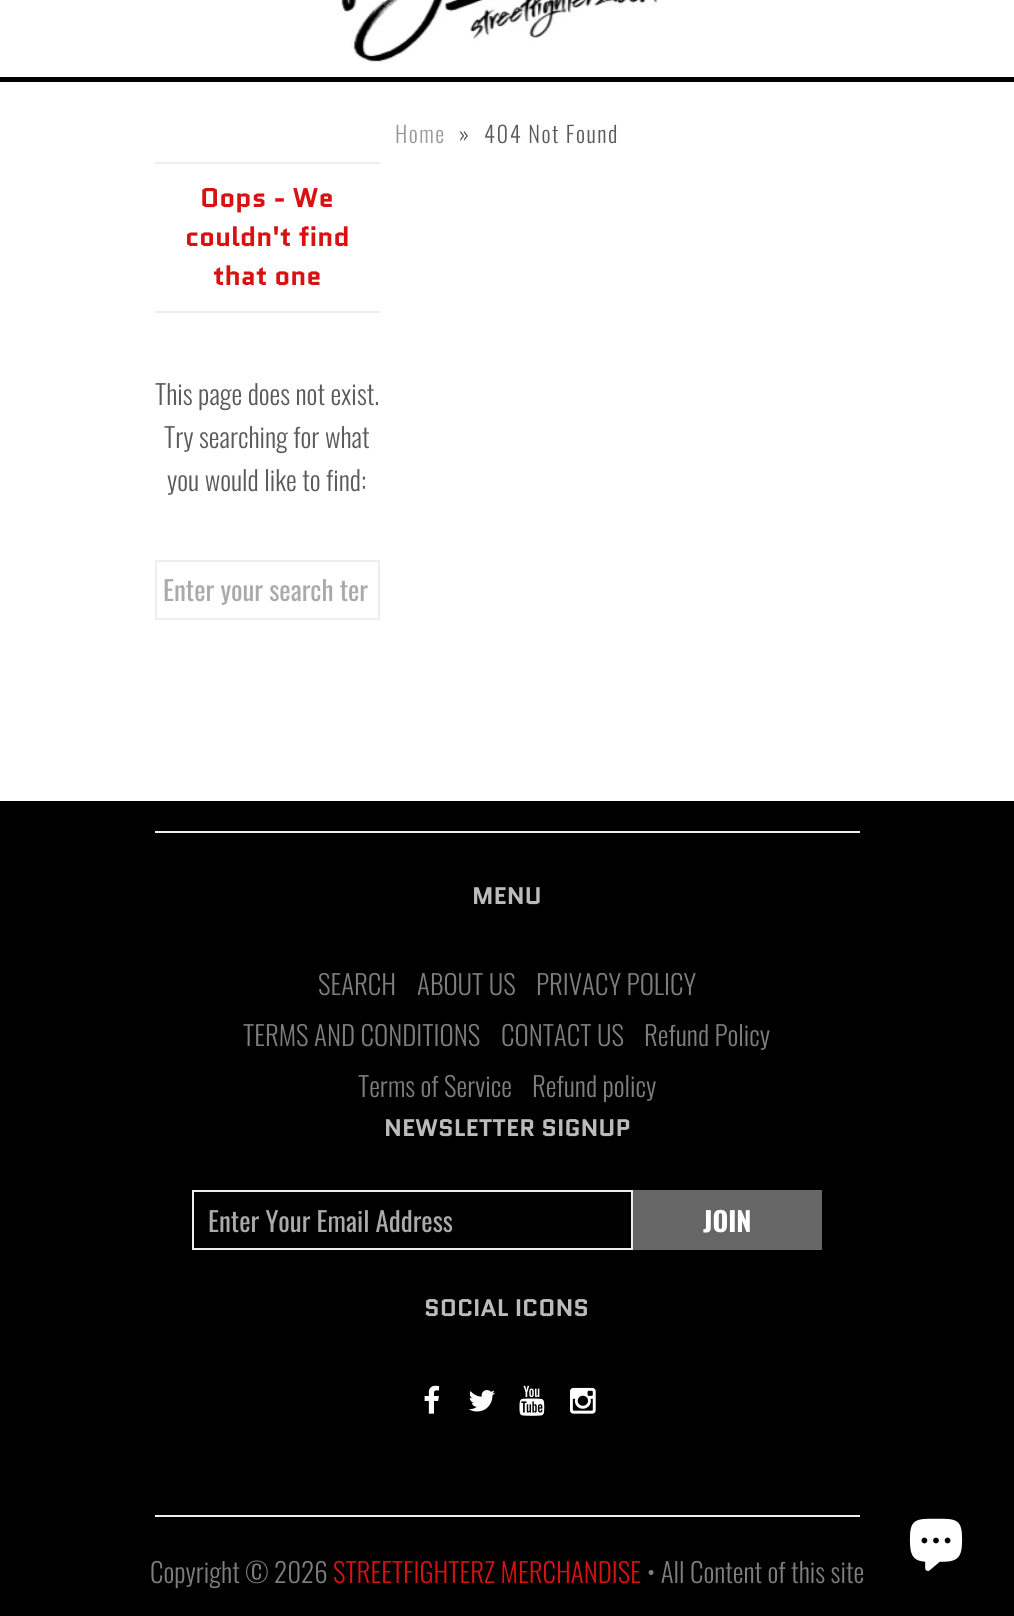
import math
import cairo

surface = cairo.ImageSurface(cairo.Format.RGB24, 1014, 1616)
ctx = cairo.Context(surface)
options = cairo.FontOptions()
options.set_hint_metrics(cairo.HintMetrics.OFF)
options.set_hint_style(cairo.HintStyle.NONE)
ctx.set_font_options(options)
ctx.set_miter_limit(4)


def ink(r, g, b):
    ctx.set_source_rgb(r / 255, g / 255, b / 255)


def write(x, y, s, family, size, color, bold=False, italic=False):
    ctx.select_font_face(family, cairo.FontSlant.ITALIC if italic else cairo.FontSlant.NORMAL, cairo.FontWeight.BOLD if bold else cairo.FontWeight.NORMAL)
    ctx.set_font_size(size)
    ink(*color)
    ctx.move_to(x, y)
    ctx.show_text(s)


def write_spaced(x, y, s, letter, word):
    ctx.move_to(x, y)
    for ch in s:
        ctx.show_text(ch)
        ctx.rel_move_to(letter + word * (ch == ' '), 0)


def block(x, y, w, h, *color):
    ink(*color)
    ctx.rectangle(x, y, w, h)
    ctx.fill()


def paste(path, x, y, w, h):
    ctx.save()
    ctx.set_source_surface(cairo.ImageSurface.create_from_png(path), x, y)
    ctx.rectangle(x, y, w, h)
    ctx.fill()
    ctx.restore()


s1 = dict(family="Quantico", size=27, color=(216, 18, 18), bold=True)
s2 = dict(family="Oswald Light", size=27, color=(90, 90, 90))
s3 = dict(family="Oswald", size=27, color=(170, 170, 170))
s4 = dict(family="Quantico", size=24, color=(187, 187, 187), bold=True)
s5 = dict(family="Oswald Light", size=27, color=(126, 126, 126))
s6 = dict(family="Oswald", size=27, color=(255, 255, 255), bold=True)
s7 = dict(family="Oswald Light", size=27, color=(216, 18, 18))

ink(255, 255, 255)
ctx.paint()
paste("pic1.png", 341, 0, 317, 62)
block(0, 77, 1014, 5, 0, 0, 0)
ctx.select_font_face("Oswald Light")
ctx.set_font_size(22.5)
ink(153, 153, 153)
write_spaced(395, 143, "Home", 1.5, 0)
ink(90, 90, 90)
write_spaced(459, 143, "»", 1.5, 0)
write_spaced(484, 143, "404 Not Found", 1.5, 0)
block(155, 162, 225, 2, 238, 238, 238)
block(155, 311, 225, 2, 238, 238, 238)
write(200, 207, "Oops - We", **s1)
write(185, 246, "couldn't find", **s1)
write(213, 285, "that one", **s1)
write(155, 405, "This page does not exist.", **s2)
write(164, 448, "Try searching for what", **s2)
write(167, 491, "you would like to find:", **s2)
ctx.rectangle(156, 561, 223, 58)
ink(238, 238, 238)
ctx.stroke()
write(163, 601, "Enter your search ter", **s3)
block(0, 801, 1014, 815, 0, 0, 0)
block(155, 831, 705, 2, 240, 240, 240)
block(155, 1515, 705, 2, 240, 240, 240)
write(472, 904, "MENU", **s4)
write(318, 995, "SEARCH", **s5)
write(417, 995, "ABOUT US", **s5)
write(536, 995, "PRIVACY POLICY", **s5)
write(243, 1046, "TERMS AND CONDITIONS", **s5)
write(501, 1046, "CONTACT US", **s5)
write(644, 1046, "Refund Policy", **s5)
write(358, 1097, "Terms of Service", **s5)
write(532, 1097, "Refund policy", **s5)
write(384, 1136, "NEWSLETTER SIGNUP", **s4)
ctx.rectangle(193, 1191, 439, 58)
ink(238, 238, 238)
ctx.stroke()
write(208, 1232, "Enter Your Email Address", **s3)
block(633, 1190, 189, 60, 102, 102, 102)
write(703, 1232, "JOIN", **s6)
write(424, 1316, "SOCIAL ICONS", **s4)
paste("pic2.png", 424, 1385, 16, 29)
paste("pic3.png", 469, 1390, 26, 22)
paste("pic4.png", 519, 1385, 26, 31)
paste("pic5.png", 570, 1387, 26, 27)
write(150, 1583, "Copyright © 2026", **s5)
write(333, 1583, "STREETFIGHTERZ MERCHANDISE", **s7)
write(647, 1583, "• All Content of this site", **s5)
paste("pic6.png", 909, 1518, 54, 53)
surface.write_to_png("screenshot.png")
